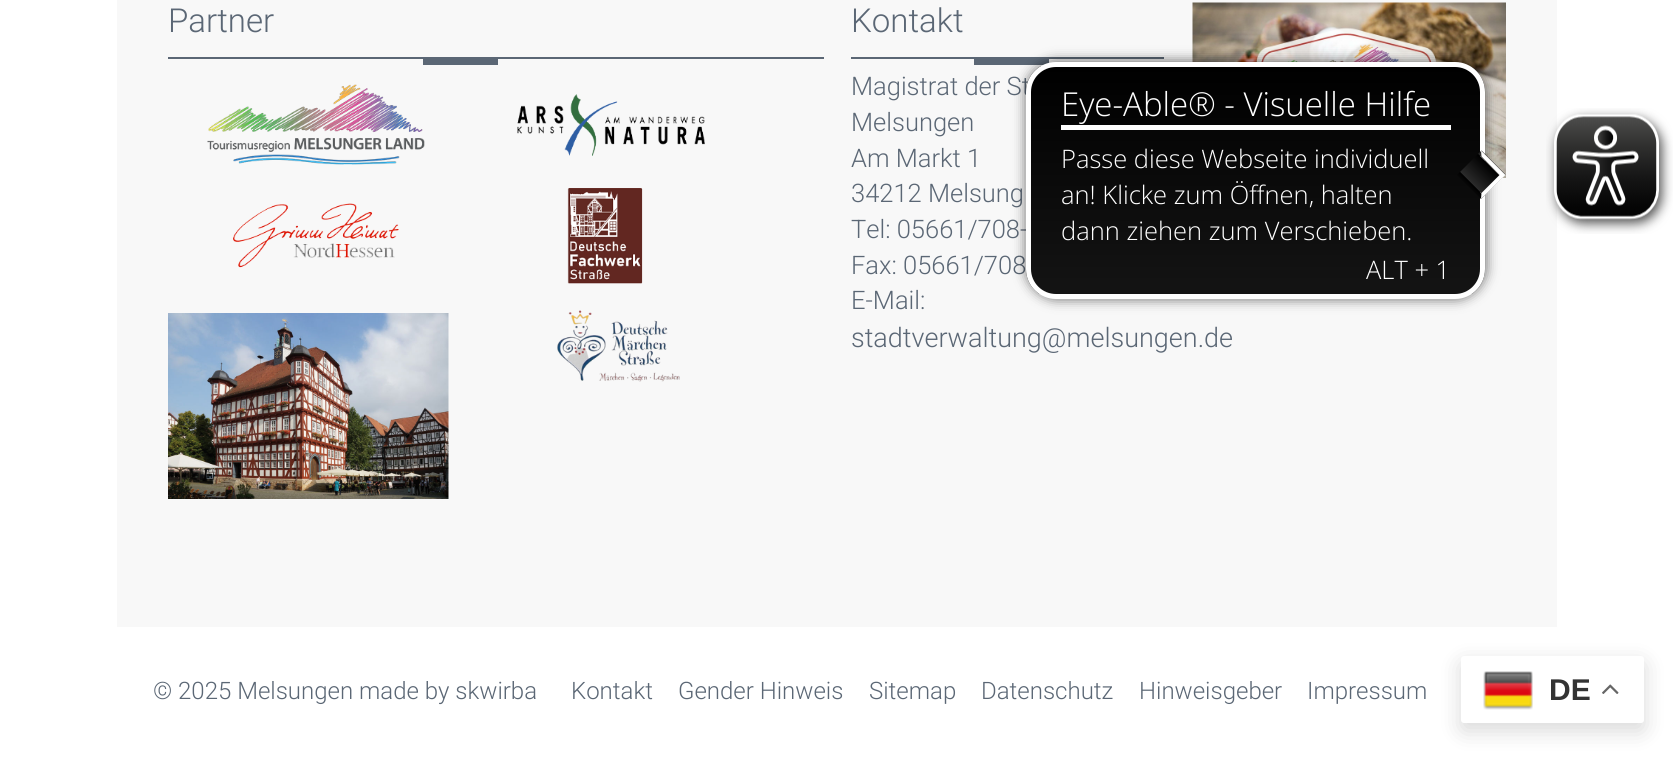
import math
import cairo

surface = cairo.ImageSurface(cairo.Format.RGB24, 1674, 763)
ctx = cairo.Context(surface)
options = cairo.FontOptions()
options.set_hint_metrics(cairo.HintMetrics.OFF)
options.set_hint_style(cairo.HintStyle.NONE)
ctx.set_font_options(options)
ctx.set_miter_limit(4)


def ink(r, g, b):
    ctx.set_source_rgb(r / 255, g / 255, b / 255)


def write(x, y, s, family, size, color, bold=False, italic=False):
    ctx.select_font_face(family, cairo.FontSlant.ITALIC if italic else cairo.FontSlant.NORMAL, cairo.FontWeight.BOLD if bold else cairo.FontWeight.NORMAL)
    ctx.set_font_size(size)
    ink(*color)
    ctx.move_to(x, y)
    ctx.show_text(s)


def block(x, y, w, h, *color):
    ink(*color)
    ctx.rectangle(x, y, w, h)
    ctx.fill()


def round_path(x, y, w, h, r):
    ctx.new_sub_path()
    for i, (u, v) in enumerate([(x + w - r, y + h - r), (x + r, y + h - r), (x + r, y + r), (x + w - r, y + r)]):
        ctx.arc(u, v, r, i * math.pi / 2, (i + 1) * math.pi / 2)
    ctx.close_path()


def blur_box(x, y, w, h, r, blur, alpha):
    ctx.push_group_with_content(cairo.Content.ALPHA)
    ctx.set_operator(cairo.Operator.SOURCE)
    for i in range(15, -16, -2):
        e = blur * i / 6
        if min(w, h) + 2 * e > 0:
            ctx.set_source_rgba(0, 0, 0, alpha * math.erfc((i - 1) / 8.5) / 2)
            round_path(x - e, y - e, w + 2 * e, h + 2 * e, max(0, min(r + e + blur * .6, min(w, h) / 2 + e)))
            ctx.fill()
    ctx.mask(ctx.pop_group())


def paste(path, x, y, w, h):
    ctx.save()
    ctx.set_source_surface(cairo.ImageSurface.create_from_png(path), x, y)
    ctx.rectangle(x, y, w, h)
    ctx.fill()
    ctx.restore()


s1 = dict(family="Roboto Light", size=33, color=(91, 103, 117))
s2 = dict(family="Roboto Light", size=25.5, color=(91, 103, 117))
s3 = dict(family="Roboto Light", size=27, color=(91, 103, 117))
s4 = dict(family="Roboto Light", size=24, color=(91, 103, 117))
s5 = dict(family="Liberation Sans", size=30, color=(51, 51, 51), bold=True)
s6 = dict(family="Open Sans Light", size=33, color=(255, 255, 255))
s7 = dict(family="Open Sans Light", size=25.5, color=(255, 255, 255))

ink(255, 255, 255)
ctx.paint()
block(117, 0, 1440, 627, 248, 248, 248)
block(168, 57, 656, 2, 91, 103, 117)
write(168, 32, "Partner", **s1)
block(423, 59, 75, 6, 91, 103, 117)
paste("pic1.png", 207, 84, 218, 81)
paste("pic2.png", 517, 94, 188, 62)
paste("pic3.png", 233, 203, 166, 65)
paste("pic4.png", 567, 188, 76, 96)
paste("pic5.png", 168, 313, 281, 186)
paste("pic6.png", 557, 310, 123, 72)
block(851, 57, 313, 2, 91, 103, 117)
write(851, 32, "Kontakt", **s1)
block(974, 59, 75, 6, 91, 103, 117)
write(851, 95, "Magistrat der St", **s2)
write(851, 131, "Melsungen", **s2)
write(851, 167, "Am Markt 1", **s2)
write(851, 202, "34212 Melsung", **s2)
write(851, 238, "Tel: 05661/708-", **s2)
write(851, 274, "Fax: 05661/708", **s2)
write(851, 309, "E-Mail:", **s2)
write(851, 347, "stadtverwaltung@melsungen.de", **s3)
paste("pic7.png", 1192, 2, 314, 176)
write(153, 699, "© 2025 Melsungen made by skwirba", **s4)
write(571, 699, "Kontakt", **s4)
write(678, 699, "Gender Hinweis", **s4)
write(869, 699, "Sitemap", **s4)
write(981, 699, "Datenschutz", **s4)
write(1139, 699, "Hinweisgeber", **s4)
write(1307, 699, "Impressum", **s4)
ink(0, 0, 0)
blur_box(1461, 663, 183, 68, 3, 11, 0.15)
ink(255, 255, 255)
round_path(1461, 656, 183, 67, 3)
ctx.fill()
paste("pic8.png", 1483, 671, 50, 39)
write(1549, 700, "DE", **s5)
paste("pic9.png", 1602, 684, 17, 10)
ink(0, 0, 0)
blur_box(1025, 60, 462, 240, 32, 6, 0.5)
ctx.save()
round_path(1026, 62, 459, 237, 30)
ctx.clip()
gradient = cairo.LinearGradient(1256, 66, 1256, 294)
gradient.add_color_stop_rgba(0, 0, 0, 0, 1)
gradient.add_color_stop_rgba(1, 0.078, 0.078, 0.078, 1)
ctx.set_source(gradient)
ctx.rectangle(1026, 66, 459, 228)
ctx.fill()
ctx.restore()
round_path(1028.5, 64.5, 454, 232, 27.5)
ink(255, 255, 255)
ctx.set_line_width(5)
ctx.stroke()
block(1061, 125, 390, 5, 255, 255, 255)
write(1061, 116, "Eye-Able® - Visuelle Hilfe", **s6)
write(1061, 168, "Passe diese Webseite individuell", **s7)
write(1061, 204, "an! Klicke zum Öffnen, halten", **s7)
write(1061, 240, "dann ziehen zum Verschieben.", **s7)
gradient = cairo.LinearGradient(1508, 148, 1490, 166)
gradient.add_color_stop_rgba(0, 0, 0, 0, 1)
gradient.add_color_stop_rgba(1, 0.169, 0.169, 0.169, 1)
ctx.set_source(gradient)
ctx.new_path()
ctx.move_to(1505.5, 174.5)
ctx.line_to(1502, 178)
ctx.line_to(1478, 154)
ctx.line_to(1481.5, 150.5)
ctx.close_path()
ctx.fill()
gradient = cairo.LinearGradient(1490, 166, 1472, 184)
gradient.add_color_stop_rgba(0, 0, 0, 0, 1)
gradient.add_color_stop_rgba(1, 0.169, 0.169, 0.169, 1)
ctx.set_source(gradient)
ctx.new_path()
ctx.move_to(1478, 154)
ctx.line_to(1502, 178)
ctx.line_to(1484, 196)
ctx.line_to(1460, 172)
ctx.close_path()
ctx.fill()
gradient = cairo.LinearGradient(1472, 184, 1454, 202)
gradient.add_color_stop_rgba(0, 0, 0, 0, 1)
gradient.add_color_stop_rgba(1, 0.169, 0.169, 0.169, 1)
ctx.set_source(gradient)
ctx.new_path()
ctx.move_to(1460, 172)
ctx.line_to(1484, 196)
ctx.line_to(1481, 199)
ctx.line_to(1457, 175)
ctx.close_path()
ctx.fill()
ink(255, 255, 255)
ctx.new_path()
ctx.move_to(1481, 150.5)
ctx.line_to(1505.5, 175)
ctx.line_to(1499.5, 175)
ctx.line_to(1481.5, 156.5)
ctx.close_path()
ctx.move_to(1505.5, 175)
ctx.line_to(1481, 199)
ctx.line_to(1481.5, 193)
ctx.line_to(1499.5, 175)
ctx.close_path()
ctx.fill()
write(1366, 279, "ALT + 1", **s7)
paste("pic10.png", 1546, 108, 127, 126)
surface.write_to_png("screenshot.png")
